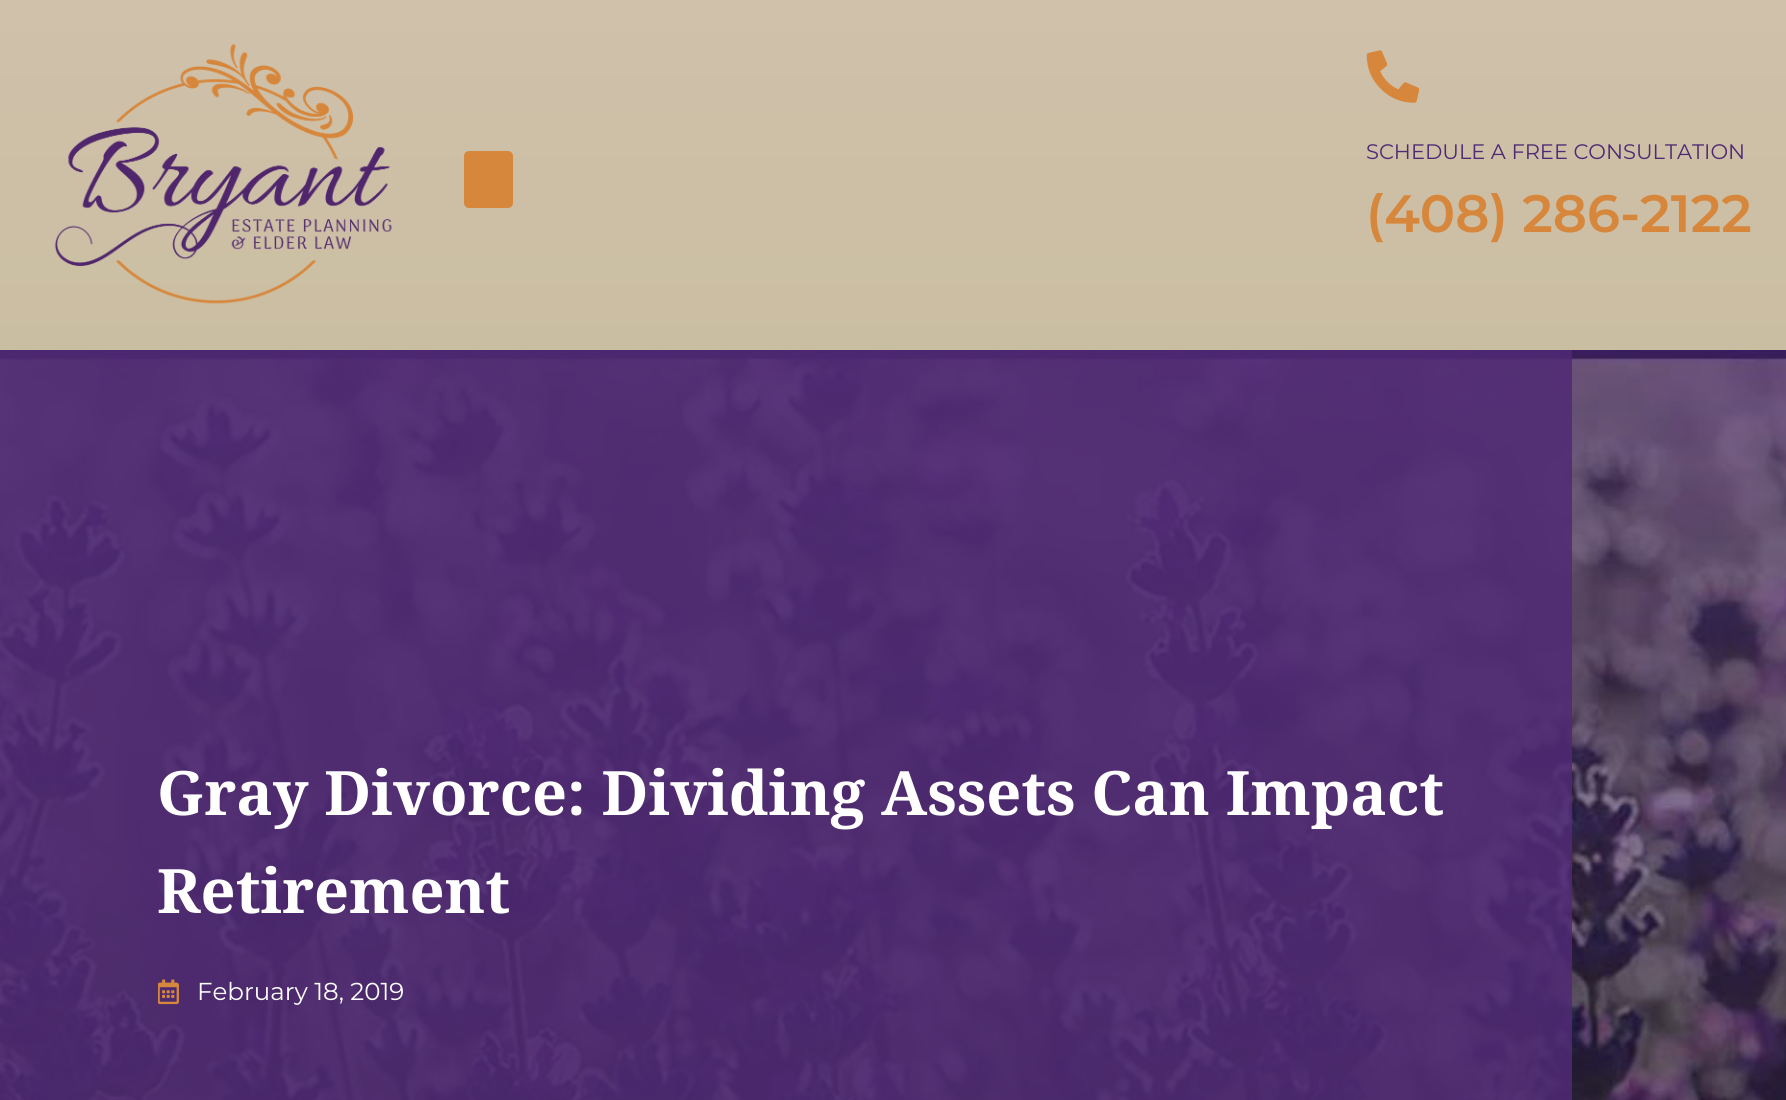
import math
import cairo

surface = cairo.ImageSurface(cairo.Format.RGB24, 1786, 1100)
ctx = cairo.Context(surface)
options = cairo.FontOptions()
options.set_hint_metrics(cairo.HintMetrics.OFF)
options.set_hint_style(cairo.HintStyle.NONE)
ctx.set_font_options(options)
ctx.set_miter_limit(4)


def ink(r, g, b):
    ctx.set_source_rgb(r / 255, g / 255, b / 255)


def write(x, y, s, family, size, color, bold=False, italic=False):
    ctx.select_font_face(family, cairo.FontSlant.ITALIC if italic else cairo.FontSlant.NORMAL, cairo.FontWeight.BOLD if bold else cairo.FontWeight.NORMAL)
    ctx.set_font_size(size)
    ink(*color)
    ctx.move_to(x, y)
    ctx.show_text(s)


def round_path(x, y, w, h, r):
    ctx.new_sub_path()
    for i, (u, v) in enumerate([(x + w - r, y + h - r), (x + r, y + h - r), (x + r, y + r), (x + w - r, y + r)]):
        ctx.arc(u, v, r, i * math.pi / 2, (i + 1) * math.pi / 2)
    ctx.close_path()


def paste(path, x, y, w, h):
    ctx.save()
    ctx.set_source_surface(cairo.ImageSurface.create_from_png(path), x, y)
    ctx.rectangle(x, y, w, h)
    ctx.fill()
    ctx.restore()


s1 = dict(family="Montserrat", size=21, color=(80, 41, 116))
s2 = dict(family="Montserrat SemiBold", size=52.5, color=(215, 135, 60))
s3 = dict(family="Noto Serif", size=61.25, color=(255, 255, 255), bold=True)
s4 = dict(family="Montserrat", size=24.5, color=(255, 255, 255))

ink(255, 255, 255)
ctx.paint()
gradient = cairo.LinearGradient(893, -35, 893, 350)
gradient.add_color_stop_rgba(0, 0.816, 0.757, 0.671, 1)
gradient.add_color_stop_rgba(1, 0.792, 0.745, 0.635, 1)
ctx.set_source(gradient)
ctx.rectangle(0, 0, 1786, 350)
ctx.fill()
paste("pic1.png", 54, 43, 338, 261)
ink(215, 135, 60)
round_path(464, 151, 49, 57, 5)
ctx.fill()
paste("pic2.png", 1366, 50, 54, 53)
write(1366, 159, "SCHEDULE A FREE CONSULTATION", **s1)
write(1366, 232, "(408) 286-2122", **s2)
paste("pic3.png", 0, 350, 1786, 750)
ctx.set_source_rgba(0.314, 0.161, 0.455, 0.85)
ctx.rectangle(0, 350, 1572, 750)
ctx.fill()
write(157, 815, "Gray Divorce: Dividing Assets Can Impact", **s3)
write(157, 913, "Retirement", **s3)
paste("pic4.png", 158, 979, 21, 26)
write(197, 1000, "February 18, 2019", **s4)
surface.write_to_png("screenshot.png")
